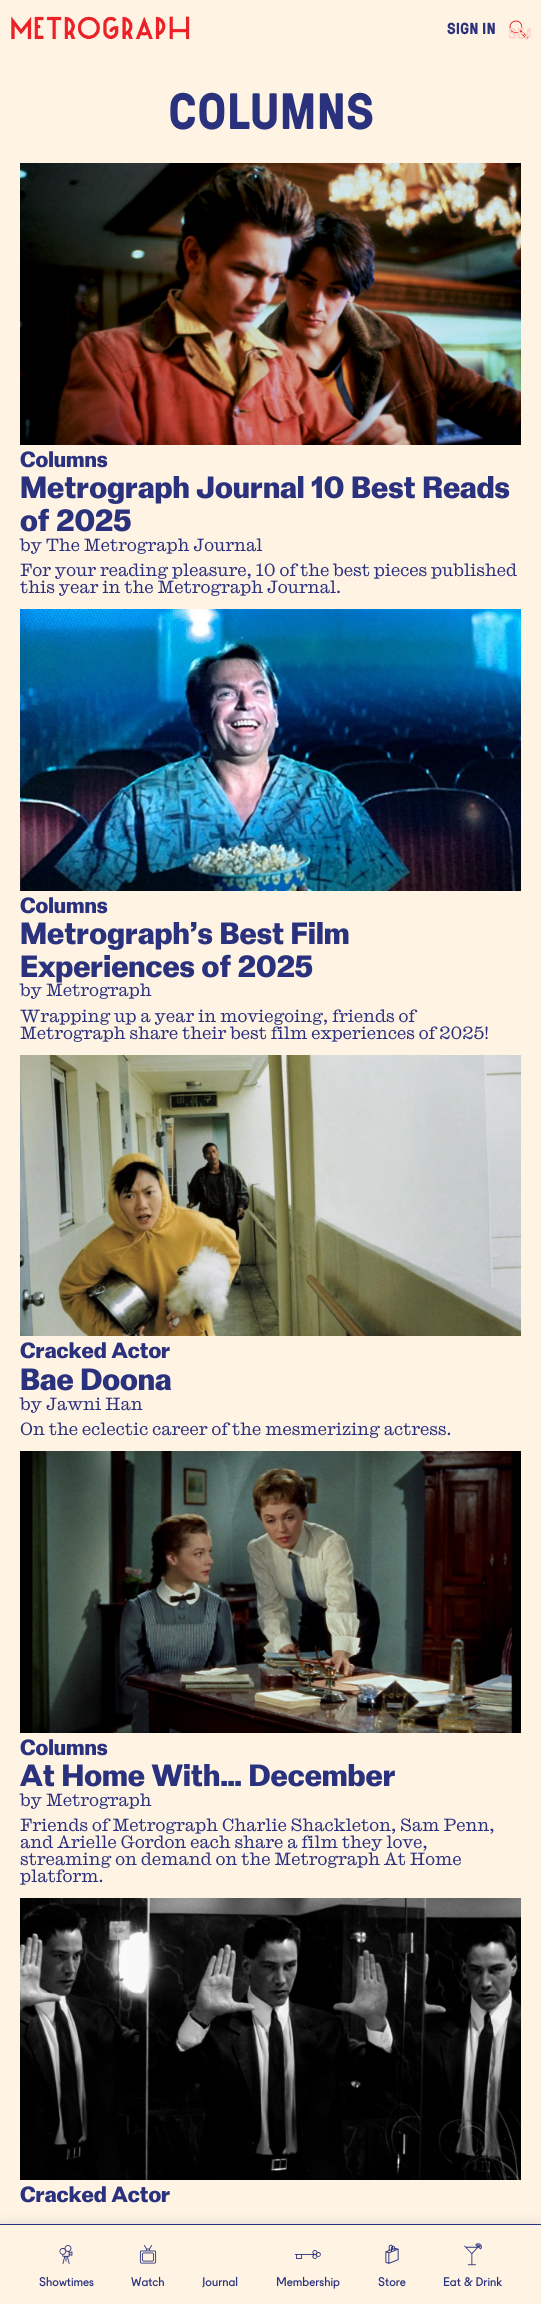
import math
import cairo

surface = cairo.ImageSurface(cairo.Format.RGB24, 541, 2304)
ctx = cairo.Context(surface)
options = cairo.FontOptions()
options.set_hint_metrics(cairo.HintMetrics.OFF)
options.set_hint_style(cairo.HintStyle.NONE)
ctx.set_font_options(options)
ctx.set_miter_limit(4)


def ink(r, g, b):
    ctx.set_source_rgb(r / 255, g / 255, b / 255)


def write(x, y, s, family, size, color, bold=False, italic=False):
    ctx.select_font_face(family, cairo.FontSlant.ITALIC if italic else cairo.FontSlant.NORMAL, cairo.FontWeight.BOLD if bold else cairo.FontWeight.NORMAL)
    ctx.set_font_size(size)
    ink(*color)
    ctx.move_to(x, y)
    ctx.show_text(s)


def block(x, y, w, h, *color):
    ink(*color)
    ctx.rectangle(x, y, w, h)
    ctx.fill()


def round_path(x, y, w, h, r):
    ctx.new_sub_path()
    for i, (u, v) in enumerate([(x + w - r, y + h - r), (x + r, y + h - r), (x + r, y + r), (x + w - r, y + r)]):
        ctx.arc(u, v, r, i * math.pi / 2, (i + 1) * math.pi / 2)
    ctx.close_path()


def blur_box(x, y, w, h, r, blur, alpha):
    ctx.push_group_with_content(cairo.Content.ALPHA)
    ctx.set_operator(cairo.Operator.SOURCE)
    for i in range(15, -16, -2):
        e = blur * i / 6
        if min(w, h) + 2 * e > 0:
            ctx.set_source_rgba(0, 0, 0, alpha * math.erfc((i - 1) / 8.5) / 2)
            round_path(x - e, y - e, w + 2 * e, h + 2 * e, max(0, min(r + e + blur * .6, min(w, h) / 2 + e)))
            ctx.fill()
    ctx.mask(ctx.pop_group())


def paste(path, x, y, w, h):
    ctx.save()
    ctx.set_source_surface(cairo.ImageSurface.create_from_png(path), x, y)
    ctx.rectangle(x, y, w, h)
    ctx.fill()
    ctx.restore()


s1 = dict(family="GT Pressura", size=16, color=(42, 49, 125), bold=True)
s2 = dict(family="GT Pressura", size=16, color=(252, 214, 202), bold=True)
s3 = dict(family="GT Pressura", size=51, color=(42, 49, 125), bold=True)
s4 = dict(family="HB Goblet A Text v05 Black", size=21.25, color=(42, 49, 125))
s5 = dict(family="HB Goblet A Text v05 Black", size=29.75, color=(42, 49, 125))
s6 = dict(family="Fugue", size=12, color=(42, 49, 125))

ink(255, 243, 227)
ctx.paint()
paste("pic1.png", 11, 16, 179, 24)
write(447, 34, "SIGN IN", **s1)
paste("pic2.png", 509, 20, 20, 20)
ctx.save()
round_path(506, 17, 25, 25, 6)
ctx.clip()
write(508, 39, "SEA", **s2)
ctx.restore()
write(168, 129, "COLUMNS", **s3)
paste("pic3.png", 20, 163, 501, 282)
write(20, 467, "Columns", **s4)
write(20, 498, "Metrograph Journal 10 Best Reads", **s5)
write(20, 531, "of 2025", **s5)
paste("pic4.png", 19, 538, 23, 16)
paste("pic5.png", 46, 538, 217, 16)
paste("pic6.png", 20, 563, 497, 16)
paste("pic7.png", 20, 580, 320, 16)
paste("pic8.png", 20, 609, 501, 282)
write(20, 913, "Columns", **s4)
write(20, 944, "Metrograph’s Best Film", **s5)
write(20, 977, "Experiences of 2025", **s5)
paste("pic4.png", 19, 983, 23, 16)
paste("pic9.png", 46, 983, 106, 16)
paste("pic10.png", 20, 1009, 398, 16)
paste("pic11.png", 20, 1026, 468, 16)
paste("pic12.png", 20, 1055, 501, 281)
write(20, 1358, "Cracked Actor", **s4)
write(20, 1390, "Bae Doona", **s5)
paste("pic4.png", 19, 1397, 23, 16)
paste("pic13.png", 46, 1397, 97, 14)
paste("pic14.png", 20, 1422, 431, 16)
paste("pic15.png", 20, 1451, 501, 282)
write(20, 1755, "Columns", **s4)
write(20, 1786, "At Home With… December", **s5)
paste("pic4.png", 19, 1793, 23, 16)
paste("pic9.png", 46, 1793, 106, 16)
paste("pic16.png", 20, 1818, 474, 16)
paste("pic17.png", 20, 1835, 407, 16)
paste("pic18.png", 20, 1852, 441, 16)
paste("pic19.png", 20, 1869, 83, 16)
paste("pic20.png", 20, 1898, 501, 282)
write(20, 2202, "Cracked Actor", **s4)
ink(42, 49, 125)
blur_box(0, 2222, 541, 80, 0, 5, 0.1)
block(0, 2225, 541, 79, 255, 243, 227)
block(0, 2224, 541, 1, 42, 49, 125)
paste("pic21.png", 59, 2245, 14, 19)
write(39, 2286, "Showtimes", **s6)
paste("pic22.png", 139, 2245, 18, 19)
write(131, 2286, "Watch", **s6)
write(202, 2286, "Journal", **s6)
paste("pic23.png", 294, 2250, 27, 9)
write(276, 2286, "Membership", **s6)
paste("pic24.png", 385, 2244, 14, 20)
write(378, 2286, "Store", **s6)
paste("pic25.png", 464, 2243, 18, 23)
write(443, 2286, "Eat & Drink", **s6)
surface.write_to_png("screenshot.png")
